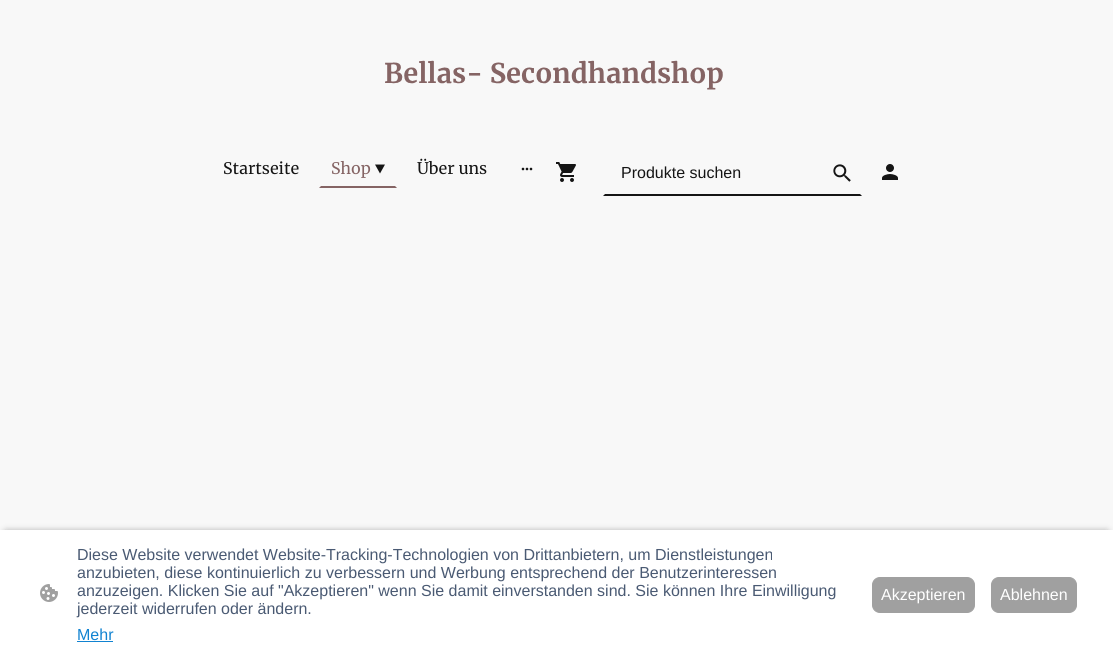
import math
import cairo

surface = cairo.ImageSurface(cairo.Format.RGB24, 1113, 660)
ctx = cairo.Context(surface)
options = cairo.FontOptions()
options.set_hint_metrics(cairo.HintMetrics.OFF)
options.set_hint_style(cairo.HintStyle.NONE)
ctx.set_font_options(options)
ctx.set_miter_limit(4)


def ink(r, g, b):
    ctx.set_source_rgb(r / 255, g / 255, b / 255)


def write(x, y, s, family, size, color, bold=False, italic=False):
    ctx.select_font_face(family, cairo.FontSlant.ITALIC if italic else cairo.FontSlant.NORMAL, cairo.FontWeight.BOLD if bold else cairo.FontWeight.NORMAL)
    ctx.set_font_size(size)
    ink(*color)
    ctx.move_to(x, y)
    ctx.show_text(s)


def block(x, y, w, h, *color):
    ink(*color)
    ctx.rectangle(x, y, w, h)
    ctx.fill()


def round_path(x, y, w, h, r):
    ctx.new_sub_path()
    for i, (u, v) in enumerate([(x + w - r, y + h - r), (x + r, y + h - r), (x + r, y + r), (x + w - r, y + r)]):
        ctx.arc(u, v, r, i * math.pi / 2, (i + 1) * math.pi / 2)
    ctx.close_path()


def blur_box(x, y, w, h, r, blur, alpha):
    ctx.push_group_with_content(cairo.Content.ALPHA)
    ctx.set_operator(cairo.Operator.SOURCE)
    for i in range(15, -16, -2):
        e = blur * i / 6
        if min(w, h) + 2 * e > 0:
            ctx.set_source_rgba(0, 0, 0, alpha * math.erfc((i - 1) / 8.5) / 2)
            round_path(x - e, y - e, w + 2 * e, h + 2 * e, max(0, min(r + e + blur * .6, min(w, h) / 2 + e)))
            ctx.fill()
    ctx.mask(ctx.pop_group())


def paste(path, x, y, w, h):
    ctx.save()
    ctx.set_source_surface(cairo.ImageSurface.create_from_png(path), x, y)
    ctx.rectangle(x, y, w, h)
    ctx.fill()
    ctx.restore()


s1 = dict(family="Merriweather", size=16, color=(21, 21, 21))
s2 = dict(family="Merriweather", size=16, color=(133, 100, 100))
s3 = dict(family="Liberation Sans", size=16, color=(21, 21, 21))
s4 = dict(family="Liberation Sans", size=16, color=(74, 90, 115))
s5 = dict(family="Liberation Sans", size=16, color=(17, 131, 209))
s6 = dict(family="Liberation Sans", size=16, color=(255, 255, 255))

ink(248, 248, 248)
ctx.paint()
paste("pic1.png", 385, 60, 338, 30)
write(223, 174, "Startseite", **s1)
ink(133, 100, 100)
ctx.new_path()
ctx.move_to(397, 188)
ctx.line_to(319, 188)
ctx.line_to(321, 186)
ctx.line_to(395, 186)
ctx.close_path()
ctx.fill()
write(331, 174, "Shop", **s2)
ink(21, 21, 21)
ctx.new_path()
ctx.move_to(385, 164.5)
ctx.line_to(380, 173.5)
ctx.line_to(375, 164.5)
ctx.close_path()
ctx.fill()
write(417, 174, "Über uns", **s1)
paste("pic2.png", 521, 167, 12, 4)
paste("pic3.png", 556, 162, 20, 20)
ctx.new_path()
ctx.move_to(862, 196)
ctx.line_to(603, 196)
ctx.line_to(605, 194)
ctx.line_to(860, 194)
ctx.close_path()
ctx.fill()
write(621, 178, "Produkte suchen", **s3)
paste("pic4.png", 833, 164, 18, 18)
paste("pic5.png", 882, 164, 16, 16)
ink(0, 0, 0)
blur_box(6, 533, 1101, 118, 0, 4, 0.63)
block(0, 530, 1113, 130, 255, 255, 255)
paste("pic6.png", 40, 584, 18, 18)
write(77, 560, "Diese Website verwendet Website-Tracking-Technologien von Drittanbietern, um Dienstleistungen", **s4)
write(77, 578, "anzubieten, diese kontinuierlich zu verbessern und Werbung entsprechend der Benutzerinteressen", **s4)
write(77, 596, "anzuzeigen. Klicken Sie auf \"Akzeptieren\" wenn Sie damit einverstanden sind. Sie können Ihre Einwilligung", **s4)
write(77, 614, "jederzeit widerrufen oder ändern.", **s4)
write(77, 640, "Mehr", **s5)
block(77, 641, 36, 1, 17, 131, 209)
ink(160, 160, 160)
round_path(872.5, 577.5, 102, 35, 7.5)
ctx.fill_preserve()
ctx.set_line_width(1)
ctx.stroke()
write(881, 600, "Akzeptieren", **s6)
ink(160, 160, 160)
round_path(991.5, 577.5, 85, 35, 7.5)
ctx.fill_preserve()
ctx.stroke()
write(1000, 600, "Ablehnen", **s6)
surface.write_to_png("screenshot.png")
